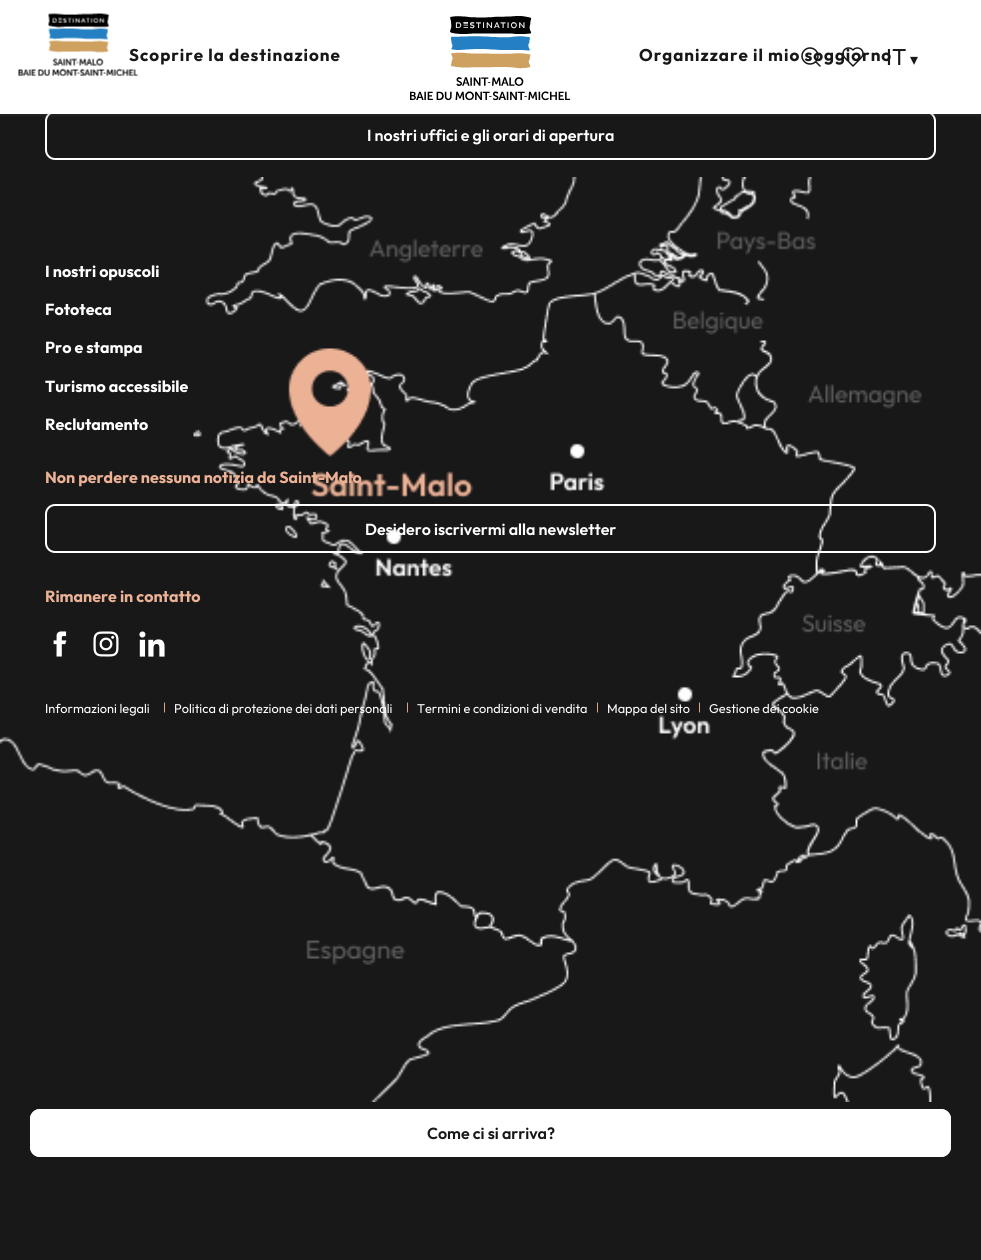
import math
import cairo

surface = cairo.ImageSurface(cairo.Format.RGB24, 981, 1260)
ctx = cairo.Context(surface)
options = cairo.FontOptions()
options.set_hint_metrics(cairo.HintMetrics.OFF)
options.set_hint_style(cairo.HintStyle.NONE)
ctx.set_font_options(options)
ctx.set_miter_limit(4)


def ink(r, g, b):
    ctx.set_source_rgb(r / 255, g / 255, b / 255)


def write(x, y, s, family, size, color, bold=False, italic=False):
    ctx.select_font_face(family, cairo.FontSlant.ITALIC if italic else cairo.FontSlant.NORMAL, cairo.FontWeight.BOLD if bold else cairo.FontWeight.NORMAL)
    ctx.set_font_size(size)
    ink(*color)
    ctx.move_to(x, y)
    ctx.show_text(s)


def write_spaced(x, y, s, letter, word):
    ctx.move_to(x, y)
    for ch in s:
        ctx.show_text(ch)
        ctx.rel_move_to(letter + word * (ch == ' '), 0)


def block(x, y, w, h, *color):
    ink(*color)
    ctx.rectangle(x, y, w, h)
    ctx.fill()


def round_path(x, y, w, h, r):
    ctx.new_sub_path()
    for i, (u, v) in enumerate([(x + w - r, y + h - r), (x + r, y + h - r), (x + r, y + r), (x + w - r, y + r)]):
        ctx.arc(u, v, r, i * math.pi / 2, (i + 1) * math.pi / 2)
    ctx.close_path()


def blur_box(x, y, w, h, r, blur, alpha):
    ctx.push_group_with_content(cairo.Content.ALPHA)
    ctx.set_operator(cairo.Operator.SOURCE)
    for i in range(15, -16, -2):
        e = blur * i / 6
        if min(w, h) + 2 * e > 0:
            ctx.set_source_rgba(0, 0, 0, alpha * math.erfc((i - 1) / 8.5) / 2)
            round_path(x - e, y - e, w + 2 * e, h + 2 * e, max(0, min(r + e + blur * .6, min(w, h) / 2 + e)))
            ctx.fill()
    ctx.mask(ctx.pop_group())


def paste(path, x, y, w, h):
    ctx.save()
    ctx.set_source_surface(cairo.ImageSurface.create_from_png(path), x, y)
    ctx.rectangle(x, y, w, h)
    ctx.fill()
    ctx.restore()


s1 = dict(family="Outfit", size=23, color=(25, 24, 24))
s2 = dict(family="DejaVu Sans", size=16, color=(25, 24, 24))
s3 = dict(family="Outfit SemiBold", size=16, color=(255, 255, 255))
s4 = dict(family="Outfit", size=16, color=(255, 255, 255), bold=True)
s5 = dict(family="Outfit", size=16, color=(236, 178, 150), bold=True)
s6 = dict(family="Outfit", size=12.75, color=(255, 255, 255))
s7 = dict(family="Outfit", size=11, color=(236, 178, 150))
s8 = dict(family="Outfit SemiBold", size=16, color=(25, 24, 24))

ink(25, 24, 24)
ctx.paint()
round_path(46, 112, 889, 47, 9)
ink(255, 255, 255)
ctx.stroke()
ink(75, 75, 75)
blur_box(1, 2, 979, 112, 0, 1.5, 0.3)
blur_box(1, 3, 979, 112, 0, 2.5, 0.25)
block(0, 0, 981, 114, 255, 255, 255)
ctx.select_font_face("Outfit", cairo.FontSlant.NORMAL, cairo.FontWeight.BOLD)
ctx.set_font_size(17)
ink(25, 24, 24)
write_spaced(129, 61, "Scoprire la destinazione", 1, 0)
paste("pic1.png", 410, 16, 161, 85)
write_spaced(639, 61, "Organizzare il mio soggiorno", 1, 0)
paste("pic2.png", 801, 47, 20, 20)
paste("pic3.png", 842, 47, 22, 20)
write(886, 65, "IT", **s1)
write(910, 65, "▾", **s2)
paste("pic4.png", 18, 13, 120, 64)
paste("pic5.png", 0, 177, 981, 925)
write(367, 141, "I nostri uffici e gli orari di apertura", **s3)
write(45, 277, "I nostri opuscoli", **s4)
write(45, 315, "Fototeca", **s4)
write(45, 353, "Pro e stampa", **s4)
write(45, 392, "Turismo accessibile", **s4)
write(45, 430, "Reclutamento", **s4)
write(45, 483, "Non perdere nessuna notizia da Saint-Malo", **s5)
round_path(46, 505, 889, 47, 9)
ink(255, 255, 255)
ctx.stroke()
write(365, 535, "Desidero iscrivermi alla newsletter", **s3)
write(45, 602, "Rimanere in contatto", **s5)
paste("pic6.png", 53, 631, 14, 26)
paste("pic7.png", 93, 631, 26, 26)
paste("pic8.png", 139, 631, 26, 26)
write(45, 713, "Informazioni legali", **s6)
write(163, 711, "|", **s7)
write(174, 713, "Politica di protezione dei dati personali", **s6)
write(406, 711, "|", **s7)
write(417, 713, "Termini e condizioni di vendita", **s6)
write(596, 711, "|", **s7)
write(607, 713, "Mappa del sito", **s6)
write(698, 711, "|", **s7)
write(709, 713, "Gestione dei cookie", **s6)
ctx.save()
round_path(30, 1109, 921, 48, 10)
ctx.clip()
round_path(-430, 988, 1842, 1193, 921)
ctx.fill()
ctx.restore()
ctx.set_fill_rule(cairo.FillRule.EVEN_ODD)
ctx.new_path()
ctx.move_to(38, 1109)
ctx.curve_to(36, 1110, 34, 1111, 33, 1112)
ctx.close_path()
ctx.move_to(946, 1111)
ctx.line_to(945, 1110)
ctx.close_path()
ctx.fill()
round_path(31, 1110, 919, 46, 9)
ctx.stroke()
write(427, 1139, "Come ci si arriva?", **s8)
surface.write_to_png("screenshot.png")
